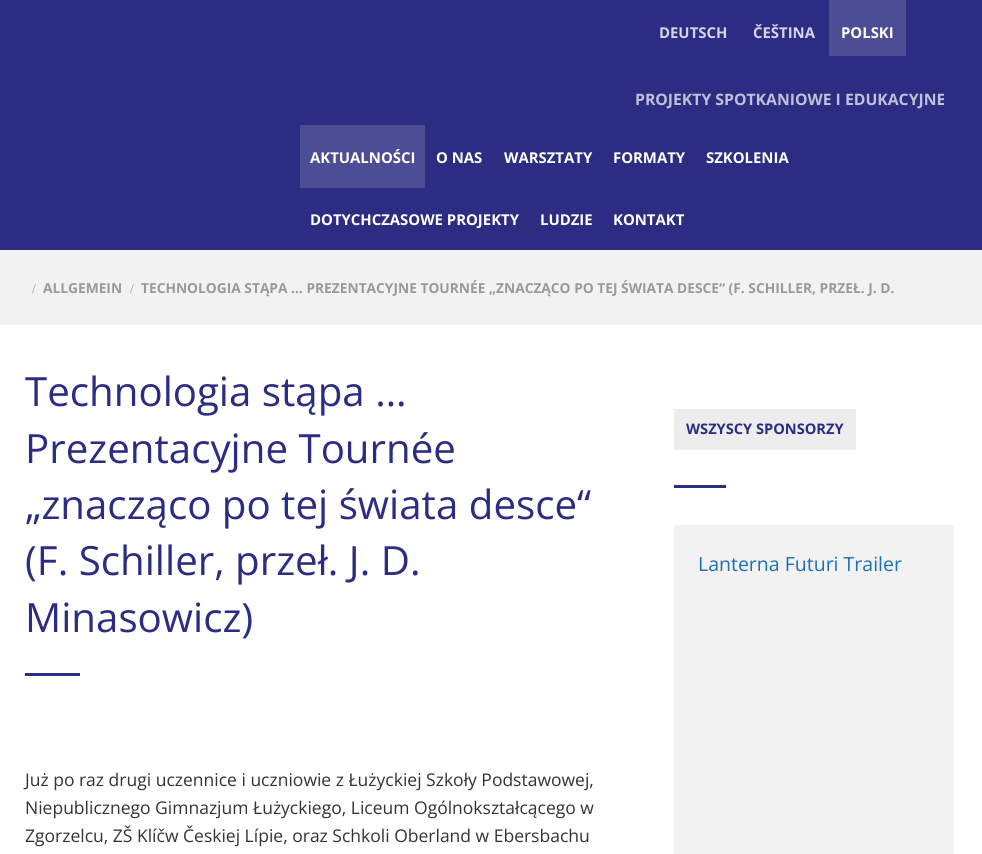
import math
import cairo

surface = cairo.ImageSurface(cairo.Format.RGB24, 982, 854)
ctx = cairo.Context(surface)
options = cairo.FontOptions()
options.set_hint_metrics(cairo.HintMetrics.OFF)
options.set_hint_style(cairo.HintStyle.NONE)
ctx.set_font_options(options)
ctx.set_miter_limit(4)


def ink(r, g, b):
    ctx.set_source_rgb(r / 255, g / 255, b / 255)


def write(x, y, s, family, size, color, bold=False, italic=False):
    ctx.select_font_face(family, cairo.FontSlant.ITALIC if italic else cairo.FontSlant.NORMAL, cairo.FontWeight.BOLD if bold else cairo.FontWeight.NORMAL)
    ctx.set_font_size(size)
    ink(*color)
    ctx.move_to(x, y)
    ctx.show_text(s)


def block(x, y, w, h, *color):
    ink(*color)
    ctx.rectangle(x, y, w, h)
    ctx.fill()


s1 = dict(family="Open Sans", size=14.9, color=(213, 213, 230), bold=True)
s2 = dict(family="Open Sans", size=14.9, color=(255, 255, 255), bold=True)
s3 = dict(family="Open Sans", size=15.75, color=(192, 192, 218), bold=True)
s4 = dict(family="Liberation Serif", size=13.75, color=(153, 153, 153))
s5 = dict(family="Open Sans", size=13.75, color=(153, 153, 153), bold=True)
s6 = dict(family="Open Sans", size=40.25, color=(44, 45, 130))
s7 = dict(family="Open Sans", size=17.5, color=(51, 51, 51))
s8 = dict(family="Open Sans", size=14.6, color=(44, 45, 130), bold=True)
s9 = dict(family="Open Sans", size=19.5, color=(28, 111, 183))

ink(242, 242, 242)
ctx.paint()
block(0, 0, 982, 250, 44, 45, 130)
write(659, 38, "DEUTSCH", **s1)
write(753, 38, "ČEŠTINA", **s1)
block(829, 0, 77, 56, 76, 77, 149)
write(841, 38, "POLSKI", **s2)
write(635, 105, "PROJEKTY SPOTKANIOWE I EDUKACYJNE", **s3)
block(300, 125, 125, 63, 76, 77, 149)
write(310, 163, "AKTUALNOŚCI", **s2)
write(436, 163, "O NAS", **s2)
write(504, 163, "WARSZTATY", **s2)
write(613, 163, "FORMATY", **s2)
write(706, 163, "SZKOLENIA", **s2)
write(310, 225, "DOTYCHCZASOWE PROJEKTY", **s2)
write(540, 225, "LUDZIE", **s2)
write(613, 225, "KONTAKT", **s2)
write(32, 293, "/", **s4)
write(43, 293, "ALLGEMEIN", **s5)
write(130, 293, "/", **s4)
write(141, 293, "TECHNOLOGIA STĄPA … PREZENTACYJNE TOURNÉE „ZNACZĄCO PO TEJ ŚWIATA DESCE“ (F. SCHILLER, PRZEŁ. J. D.", **s5)
block(0, 325, 982, 529, 255, 255, 255)
write(25, 406, "Technologia stąpa …", **s6)
write(25, 463, "Prezentacyjne Tournée", **s6)
write(25, 519, "„znacząco po tej świata desce“", **s6)
write(25, 575, "(F. Schiller, przeł. J. D.", **s6)
write(25, 632, "Minasowicz)", **s6)
block(25, 673, 55, 3, 44, 45, 130)
write(25, 786, "Już po raz drugi uczennice i uczniowie z Łużyckiej Szkoły Podstawowej,", **s7)
write(25, 814, "Niepublicznego Gimnazjum Łużyckiego, Liceum Ogólnokształcącego w", **s7)
write(25, 842, "Zgorzelcu, ZŠ Klíčw Českiej Lípie, oraz Schkoli Oberland w Ebersbachu", **s7)
block(674, 409, 182, 41, 237, 237, 237)
write(686, 434, "WSZYSCY SPONSORZY", **s8)
block(674, 485, 52, 3, 44, 45, 130)
block(674, 525, 280, 329, 242, 242, 242)
write(698, 571, "Lanterna Futuri Trailer", **s9)
surface.write_to_png("screenshot.png")
